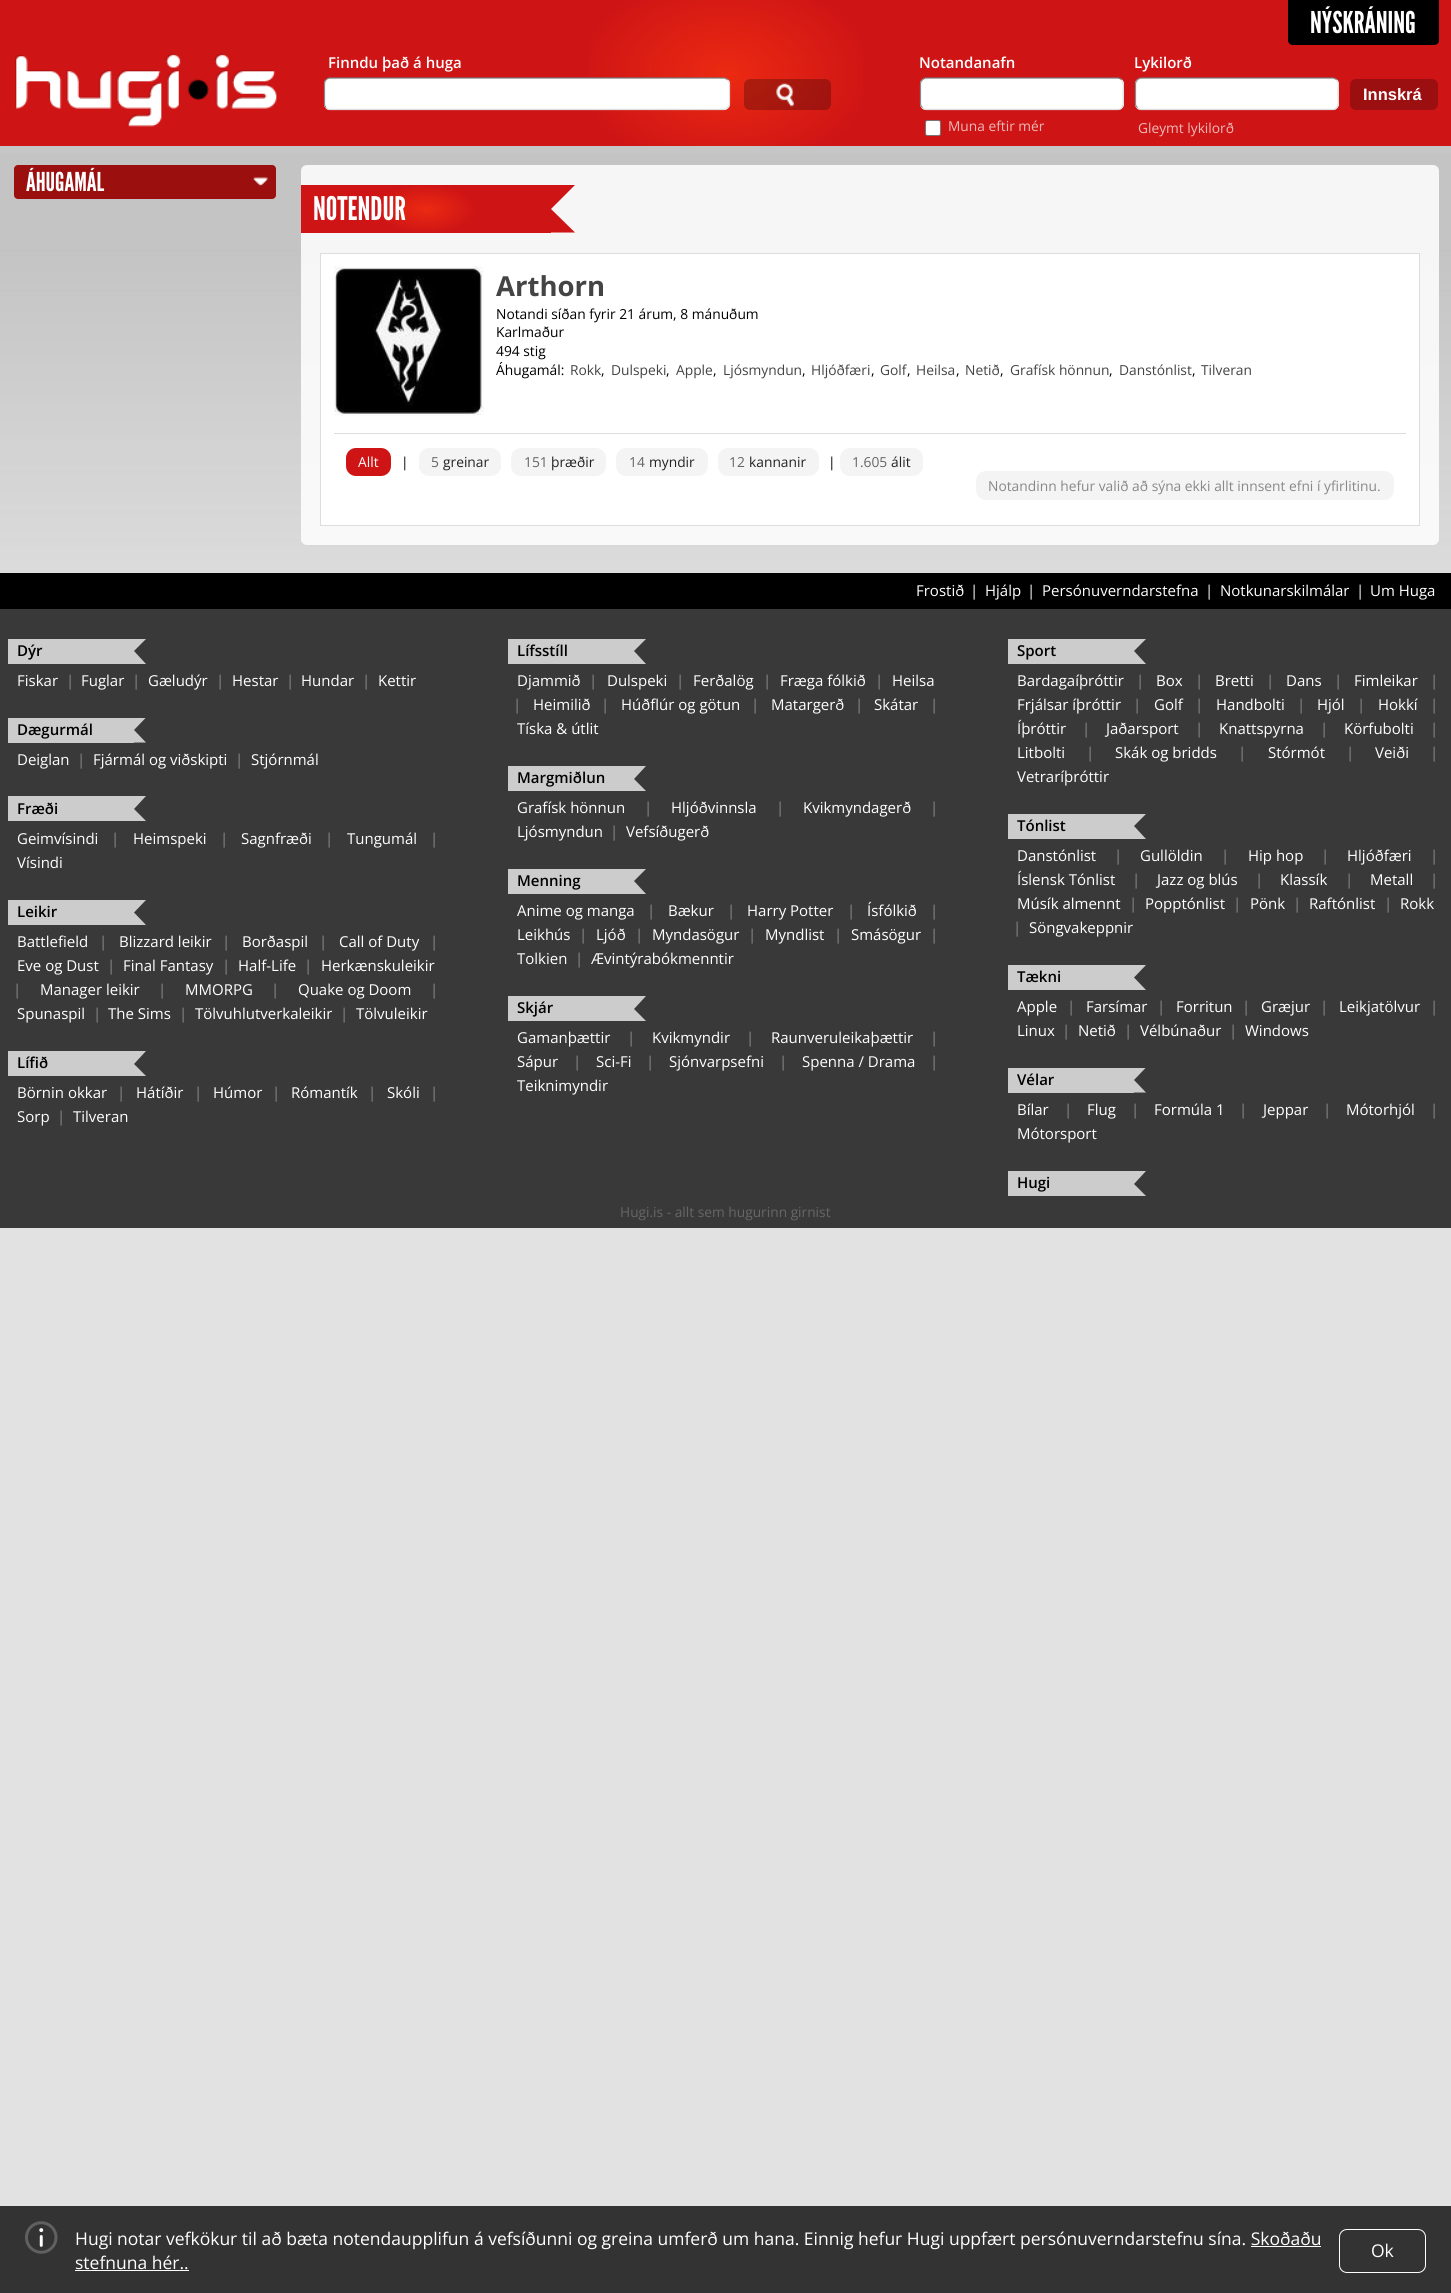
import math
import cairo

surface = cairo.ImageSurface(cairo.Format.RGB24, 1451, 2293)
ctx = cairo.Context(surface)
options = cairo.FontOptions()
options.set_hint_metrics(cairo.HintMetrics.OFF)
options.set_hint_style(cairo.HintStyle.NONE)
ctx.set_font_options(options)
ctx.set_miter_limit(4)


def ink(r, g, b):
    ctx.set_source_rgb(r / 255, g / 255, b / 255)


def write(x, y, s, family, size, color, bold=False, italic=False):
    ctx.select_font_face(family, cairo.FontSlant.ITALIC if italic else cairo.FontSlant.NORMAL, cairo.FontWeight.BOLD if bold else cairo.FontWeight.NORMAL)
    ctx.set_font_size(size)
    ink(*color)
    ctx.move_to(x, y)
    ctx.show_text(s)


def block(x, y, w, h, *color):
    ink(*color)
    ctx.rectangle(x, y, w, h)
    ctx.fill()


def round_path(x, y, w, h, r):
    ctx.new_sub_path()
    for i, (u, v) in enumerate([(x + w - r, y + h - r), (x + r, y + h - r), (x + r, y + r), (x + w - r, y + r)]):
        ctx.arc(u, v, r, i * math.pi / 2, (i + 1) * math.pi / 2)
    ctx.close_path()


def paste(path, x, y, w, h):
    ctx.save()
    ctx.set_source_surface(cairo.ImageSurface.create_from_png(path), x, y)
    ctx.rectangle(x, y, w, h)
    ctx.fill()
    ctx.restore()


s1 = dict(family="Open Sans SemiBold", size=15, color=(255, 255, 255))
s2 = dict(family="League Gothic", size=30, color=(255, 255, 255))
s3 = dict(family="Liberation Sans", size=16.5, color=(255, 255, 255), bold=True)
s4 = dict(family="Open Sans", size=13.75, color=(240, 185, 185))
s5 = dict(family="League Gothic", size=26, color=(255, 255, 255))
s6 = dict(family="League Gothic", size=32.5, color=(255, 255, 255))
s7 = dict(family="Open Sans", size=27.5, color=(68, 68, 68), bold=True)
s8 = dict(family="Open Sans", size=13.8, color=(0, 0, 0))
s9 = dict(family="Open Sans", size=13.8, color=(68, 68, 68))
s10 = dict(family="Open Sans", size=13.8, color=(255, 255, 255))
s11 = dict(family="Open Sans", size=13.8, color=(102, 102, 102))
s12 = dict(family="Open Sans", size=13.8, color=(34, 34, 34))
s13 = dict(family="Open Sans", size=13.8, color=(136, 136, 136))
s14 = dict(family="Open Sans", size=15, color=(255, 255, 255))
s15 = dict(family="Open Sans SemiBold", size=15, color=(0, 0, 0))
s16 = dict(family="Open Sans", size=15, color=(136, 136, 136))
s17 = dict(family="Open Sans", size=13.75, color=(102, 102, 102))
s18 = dict(family="Open Sans", size=17.5, color=(255, 255, 255))

ink(226, 226, 226)
ctx.paint()
paste("pic1.png", 0, 153, 1451, 420)
block(0, 0, 1451, 146, 206, 20, 21)
block(0, 146, 1451, 7, 198, 198, 198)
gradient = cairo.RadialGradient(0, 0, 0, 0, 0, 1)
gradient.set_matrix(cairo.Matrix(1 / 150, 0, 0, 1 / 100, -1 * 726 / 150, -1 * 73 / 100))
gradient.add_color_stop_rgba(0, 0.925, 0.165, 0.071, 1)
gradient.add_color_stop_rgba(1, 0.808, 0.078, 0.082, 1)
ctx.set_source(gradient)
ctx.rectangle(589, 0, 274, 146)
ctx.fill()
paste("pic2.png", 15, 53, 262, 74)
write(328, 68, "Finndu það á huga", **s1)
round_path(324, 78, 406, 32, 6)
ctx.fill()
ctx.new_path()
ctx.move_to(326, 80)
ctx.curve_to(327, 78.5, 328.5, 78, 330, 78)
ctx.line_to(724, 78)
ctx.curve_to(725, 78, 726.5, 78.5, 727.5, 80)
ink(119, 119, 119)
ctx.set_line_width(1.2)
ctx.stroke()
ctx.new_path()
ctx.move_to(727.5, 80)
ctx.curve_to(729, 81, 729.5, 82.5, 729.5, 84)
ctx.line_to(729.5, 104)
ctx.curve_to(729.5, 105, 729, 106.5, 727.5, 107.5)
ctx.curve_to(726.5, 109, 725, 109.5, 724, 109.5)
ctx.line_to(330, 109.5)
ctx.curve_to(328.5, 109.5, 327, 109, 326, 107.5)
ink(221, 221, 221)
ctx.stroke()
ctx.new_path()
ctx.move_to(326, 107.5)
ctx.curve_to(325, 106.5, 324.5, 105, 324.5, 104)
ctx.line_to(324.5, 84)
ctx.curve_to(324.5, 82.5, 325, 81, 326, 80)
ink(136, 136, 136)
ctx.stroke()
ctx.set_source_rgba(0, 0, 0, 0.25)
round_path(744, 79, 87, 31, 6)
ctx.fill()
paste("pic3.png", 776, 83, 18, 24)
ink(0, 0, 0)
ctx.new_path()
ctx.move_to(1288, 0)
ctx.line_to(1439, 0)
ctx.line_to(1439, 40)
ctx.curve_to(1439, 43, 1437, 45, 1434, 45)
ctx.line_to(1293, 45)
ctx.curve_to(1290, 45, 1288, 43, 1288, 40)
ctx.close_path()
ctx.fill()
write(1310, 33, "NÝSKRÁNING", **s2)
write(919, 68, "Notandanafn", **s1)
round_path(920, 78, 204, 32, 6)
ctx.fill()
ctx.new_path()
ctx.move_to(922.5, 80)
ctx.curve_to(923.5, 78.5, 925, 78, 926, 78)
ctx.line_to(1117.5, 78)
ctx.curve_to(1119, 78, 1120.5, 78.5, 1121.5, 80)
ink(119, 119, 119)
ctx.stroke()
ctx.new_path()
ctx.move_to(1121.5, 80)
ctx.curve_to(1124.5, 83, 1123, 90, 1123, 94)
ctx.curve_to(1123, 98.5, 1125.5, 109.5, 1117.5, 109.5)
ctx.line_to(926, 109.5)
ctx.curve_to(925, 109.5, 923.5, 109, 922.5, 107.5)
ink(221, 221, 221)
ctx.stroke()
ctx.new_path()
ctx.move_to(922.5, 107.5)
ctx.curve_to(921, 106.5, 920.5, 105, 920.5, 104)
ctx.line_to(920.5, 84)
ctx.curve_to(920.5, 82.5, 921, 81, 922.5, 80)
ink(136, 136, 136)
ctx.stroke()
write(1134, 68, "Lykilorð", **s1)
round_path(1135, 78, 204, 32, 6)
ctx.fill()
ctx.new_path()
ctx.move_to(1137.5, 80)
ctx.curve_to(1138.5, 78.5, 1140, 78, 1141, 78)
ctx.line_to(1332.5, 78)
ctx.curve_to(1334, 78, 1335.5, 78.5, 1336.5, 80)
ink(119, 119, 119)
ctx.stroke()
ctx.new_path()
ctx.move_to(1336.5, 80)
ctx.curve_to(1339.5, 83, 1338, 90, 1338, 94)
ctx.curve_to(1338, 98.5, 1340.5, 109.5, 1332.5, 109.5)
ctx.line_to(1141, 109.5)
ctx.curve_to(1140, 109.5, 1138.5, 109, 1137.5, 107.5)
ink(221, 221, 221)
ctx.stroke()
ctx.new_path()
ctx.move_to(1137.5, 107.5)
ctx.curve_to(1136, 106.5, 1135.5, 105, 1135.5, 104)
ctx.line_to(1135.5, 84)
ctx.curve_to(1135.5, 82.5, 1136, 81, 1137.5, 80)
ink(136, 136, 136)
ctx.stroke()
ink(155, 15, 16)
round_path(1350, 79, 88, 31, 6)
ctx.fill()
write(1363, 100, "Innskrá", **s3)
round_path(925.5, 120.5, 15, 15, 2)
ctx.fill_preserve()
ink(118, 118, 118)
ctx.set_line_width(1)
ctx.stroke()
write(948, 131, "Muna eftir mér", **s4)
write(1138, 133, "Gleymt lykilorð", **s4)
ink(155, 15, 15)
round_path(14, 165, 262, 34, 4)
ctx.fill()
paste("pic4.png", 253, 177, 15, 9)
write(26, 191, "ÁHUGAMÁL", **s5)
ctx.set_source_rgba(1, 1, 1, 0.85)
round_path(301, 165, 1138, 380, 6)
ctx.fill()
gradient = cairo.RadialGradient(0, 0, 0, 0, 0, 1)
gradient.set_matrix(cairo.Matrix(1 / 50, 0, 0, 1 / 25, -1 * 426 / 50, -1 * 209 / 25))
gradient.add_color_stop_rgba(0, 0.925, 0.165, 0.071, 1)
gradient.add_color_stop_rgba(1, 0.808, 0.078, 0.082, 1)
ctx.set_source(gradient)
ctx.rectangle(301, 185, 250, 48)
ctx.fill()
write(313, 220, "NOTENDUR", **s6)
ink(206, 20, 21)
ctx.new_path()
ctx.move_to(551, 185)
ctx.line_to(575, 185)
ctx.line_to(551, 209)
ctx.close_path()
ctx.move_to(575, 232.5)
ctx.line_to(551, 232.5)
ctx.line_to(551, 209)
ctx.close_path()
ctx.fill()
ink(255, 255, 255)
ctx.rectangle(320.5, 253.5, 1099, 272)
ctx.fill_preserve()
ink(221, 221, 221)
ctx.stroke()
block(334, 433, 1072, 1, 221, 221, 221)
paste("pic5.png", 334, 266, 150, 150)
write(496, 296, "Arthorn", **s7)
write(496, 319, "Notandi síðan fyrir 21 árum, 8 mánuðum", **s8)
write(496, 337, "Karlmaður", **s8)
write(496, 356, "494 stig", **s8)
write(496, 375, "Áhugamál:", **s8)
write(570, 375, "Rokk", **s9)
write(601, 375, ",", **s8)
write(611, 375, "Dulspeki", **s9)
write(666, 375, ",", **s8)
write(676, 375, "Apple", **s9)
write(713, 375, ",", **s8)
write(723, 375, "Ljósmyndun", **s9)
write(802, 375, ",", **s8)
write(811, 375, "Hljóðfæri", **s9)
write(871, 375, ",", **s8)
write(880, 375, "Golf", **s9)
write(907, 375, ",", **s8)
write(916, 375, "Heilsa", **s9)
write(956, 375, ",", **s8)
write(965, 375, "Netið", **s9)
write(1000, 375, ",", **s8)
write(1010, 375, "Grafísk hönnun", **s9)
write(1109, 375, ",", **s8)
write(1119, 375, "Danstónlist", **s9)
write(1192, 375, ",", **s8)
write(1201, 375, "Tilveran", **s9)
ink(206, 20, 21)
round_path(346, 448, 45, 28, 10)
ctx.fill()
write(358, 467, "Allt", **s10)
write(401, 467, "|", **s8)
ink(244, 244, 244)
ctx.new_path()
ctx.move_to(429, 448)
ctx.line_to(439, 448)
ctx.line_to(439, 476)
ctx.line_to(429, 476)
ctx.curve_to(423.5, 476, 419, 471.5, 419, 466)
ctx.line_to(419, 458)
ctx.curve_to(419, 452.5, 423.5, 448, 429, 448)
ctx.close_path()
ctx.fill()
write(431, 467, "5", **s11)
ink(244, 244, 244)
ctx.new_path()
ctx.move_to(439, 448)
ctx.line_to(491, 448)
ctx.curve_to(496.5, 448, 501, 452.5, 501, 458)
ctx.line_to(501, 466)
ctx.curve_to(501, 471.5, 496.5, 476, 491, 476)
ctx.line_to(439, 476)
ctx.close_path()
ctx.fill()
write(443, 467, "greinar", **s12)
ink(244, 244, 244)
ctx.new_path()
ctx.move_to(521, 448)
ctx.line_to(548, 448)
ctx.line_to(548, 476)
ctx.line_to(521, 476)
ctx.curve_to(515.5, 476, 511, 471.5, 511, 466)
ctx.line_to(511, 458)
ctx.curve_to(511, 452.5, 515.5, 448, 521, 448)
ctx.close_path()
ctx.fill()
write(524, 467, "151", **s11)
ink(244, 244, 244)
ctx.new_path()
ctx.move_to(548, 448)
ctx.line_to(596, 448)
ctx.curve_to(601.5, 448, 606, 452.5, 606, 458)
ctx.line_to(606, 466)
ctx.curve_to(606, 471.5, 601.5, 476, 596, 476)
ctx.line_to(548, 476)
ctx.close_path()
ctx.fill()
write(551, 467, "þræðir", **s12)
ink(244, 244, 244)
ctx.new_path()
ctx.move_to(626, 448)
ctx.line_to(645, 448)
ctx.line_to(645, 476)
ctx.line_to(626, 476)
ctx.curve_to(620.5, 476, 616, 471.5, 616, 466)
ctx.line_to(616, 458)
ctx.curve_to(616, 452.5, 620.5, 448, 626, 448)
ctx.close_path()
ctx.fill()
write(629, 467, "14", **s11)
ink(244, 244, 244)
ctx.new_path()
ctx.move_to(645, 448)
ctx.line_to(698, 448)
ctx.curve_to(703.5, 448, 708, 452.5, 708, 458)
ctx.line_to(708, 466)
ctx.curve_to(708, 471.5, 703.5, 476, 698, 476)
ctx.line_to(645, 476)
ctx.close_path()
ctx.fill()
write(649, 467, "myndir", **s12)
ink(244, 244, 244)
ctx.new_path()
ctx.move_to(728, 448)
ctx.line_to(745, 448)
ctx.line_to(745, 476)
ctx.line_to(728, 476)
ctx.curve_to(722.5, 476, 718, 471.5, 718, 466)
ctx.line_to(718, 458)
ctx.curve_to(718, 452.5, 722.5, 448, 728, 448)
ctx.close_path()
ctx.fill()
write(729, 467, "12", **s11)
ink(244, 244, 244)
ctx.new_path()
ctx.move_to(745, 448)
ctx.line_to(809, 448)
ctx.curve_to(814.5, 448, 819, 452.5, 819, 458)
ctx.line_to(819, 466)
ctx.curve_to(819, 471.5, 814.5, 476, 809, 476)
ctx.line_to(745, 476)
ctx.close_path()
ctx.fill()
write(749, 467, "kannanir", **s12)
write(828, 467, "|", **s8)
ink(244, 244, 244)
ctx.new_path()
ctx.move_to(850, 448)
ctx.line_to(888, 448)
ctx.line_to(888, 476)
ctx.line_to(850, 476)
ctx.curve_to(844.5, 476, 840, 471.5, 840, 466)
ctx.line_to(840, 458)
ctx.curve_to(840, 452.5, 844.5, 448, 850, 448)
ctx.close_path()
ctx.fill()
write(852, 467, "1.605", **s11)
ink(244, 244, 244)
ctx.new_path()
ctx.move_to(888, 448)
ctx.line_to(913, 448)
ctx.curve_to(918.5, 448, 923, 452.5, 923, 458)
ctx.line_to(923, 466)
ctx.curve_to(923, 471.5, 918.5, 476, 913, 476)
ctx.line_to(888, 476)
ctx.close_path()
ctx.fill()
write(891, 467, "álit", **s12)
ink(244, 244, 244)
round_path(976, 471, 418, 29, 10)
ctx.fill()
write(988, 491, "Notandinn hefur valið að sýna ekki allt innsent efni í yfirlitinu.", **s13)
block(0, 609, 1451, 619, 57, 57, 57)
block(0, 573, 1451, 36, 0, 0, 0)
write(916, 596, "Frostið", **s14)
write(970, 596, "|", **s14)
write(985, 596, "Hjálp", **s14)
write(1027, 596, "|", **s14)
write(1042, 596, "Persónuverndarstefna", **s14)
write(1205, 596, "|", **s14)
write(1220, 596, "Notkunarskilmálar", **s14)
write(1356, 596, "|", **s14)
write(1370, 596, "Um Huga", **s14)
block(8, 639, 126, 25, 204, 204, 204)
write(17, 656, "Dýr", **s15)
ink(204, 204, 204)
ctx.new_path()
ctx.move_to(134, 639)
ctx.line_to(146, 639)
ctx.line_to(134, 651)
ctx.close_path()
ctx.move_to(146, 664)
ctx.line_to(134, 664)
ctx.line_to(134, 651)
ctx.close_path()
ctx.fill()
write(17, 686, "Fiskar", **s14)
write(66, 686, "|", **s16)
write(81, 686, "Fuglar", **s14)
write(132, 686, "|", **s16)
write(148, 686, "Gæludýr", **s14)
write(216, 686, "|", **s16)
write(232, 686, "Hestar", **s14)
write(286, 686, "|", **s16)
write(301, 686, "Hundar", **s14)
write(362, 686, "|", **s16)
write(378, 686, "Kettir", **s14)
block(8, 718, 126, 25, 204, 204, 204)
write(17, 735, "Dægurmál", **s15)
ctx.save()
ctx.rectangle(8, 718, 431, 25)
ctx.clip()
ink(204, 204, 204)
ctx.new_path()
ctx.move_to(134, 717.5)
ctx.line_to(146, 717.5)
ctx.line_to(134, 730)
ctx.close_path()
ctx.fill()
ctx.restore()
ink(204, 204, 204)
ctx.new_path()
ctx.move_to(146, 742.5)
ctx.line_to(134, 742.5)
ctx.line_to(134, 730)
ctx.close_path()
ctx.fill()
write(17, 765, "Deiglan", **s14)
write(77, 765, "|", **s16)
write(93, 765, "Fjármál og viðskipti", **s14)
write(235, 765, "|", **s16)
write(251, 765, "Stjórnmál", **s14)
block(8, 796, 126, 25, 204, 204, 204)
write(17, 814, "Fræði", **s15)
ink(204, 204, 204)
ctx.new_path()
ctx.move_to(134, 796)
ctx.line_to(146, 796)
ctx.line_to(134, 809)
ctx.close_path()
ctx.move_to(146, 821)
ctx.line_to(134, 821)
ctx.line_to(134, 809)
ctx.close_path()
ctx.fill()
write(17, 844, "Geimvísindi", **s14)
write(111, 844, "|", **s16)
write(133, 844, "Heimspeki", **s14)
write(220, 844, "|", **s16)
write(241, 844, "Sagnfræði", **s14)
write(325, 844, "|", **s16)
write(347, 844, "Tungumál", **s14)
write(430, 844, "|", **s16)
write(17, 868, "Vísindi", **s14)
block(8, 900, 126, 25, 204, 204, 204)
write(17, 917, "Leikir", **s15)
ink(204, 204, 204)
ctx.new_path()
ctx.move_to(134, 900)
ctx.line_to(146, 900)
ctx.line_to(134, 912.5)
ctx.close_path()
ctx.fill()
ctx.new_path()
ctx.move_to(146, 925)
ctx.line_to(134, 925)
ctx.line_to(134, 912.5)
ctx.close_path()
ctx.fill()
write(17, 947, "Battlefield", **s14)
write(99, 947, "|", **s16)
write(119, 947, "Blizzard leikir", **s14)
write(222, 947, "|", **s16)
write(242, 947, "Borðaspil", **s14)
write(319, 947, "|", **s16)
write(339, 947, "Call of Duty", **s14)
write(430, 947, "|", **s16)
write(17, 971, "Eve og Dust", **s14)
write(107, 971, "|", **s16)
write(123, 971, "Final Fantasy", **s14)
write(222, 971, "|", **s16)
write(238, 971, "Half-Life", **s14)
write(304, 971, "|", **s16)
write(321, 971, "Herkænskuleikir", **s14)
write(13, 995, "|", **s16)
write(40, 995, "Manager leikir", **s14)
write(158, 995, "|", **s16)
write(185, 995, "MMORPG", **s14)
write(271, 995, "|", **s16)
write(298, 995, "Quake og Doom", **s14)
write(430, 995, "|", **s16)
write(17, 1019, "Spunaspil", **s14)
write(93, 1019, "|", **s16)
write(108, 1019, "The Sims", **s14)
write(179, 1019, "|", **s16)
write(195, 1019, "Tölvuhlutverkaleikir", **s14)
write(340, 1019, "|", **s16)
write(356, 1019, "Tölvuleikir", **s14)
block(8, 1051, 126, 25, 204, 204, 204)
write(17, 1068, "Lífið", **s15)
ink(204, 204, 204)
ctx.new_path()
ctx.move_to(134, 1051)
ctx.line_to(146, 1051)
ctx.line_to(134, 1064)
ctx.close_path()
ctx.move_to(146, 1076)
ctx.line_to(134, 1076)
ctx.line_to(134, 1064)
ctx.close_path()
ctx.fill()
write(17, 1098, "Börnin okkar", **s14)
write(117, 1098, "|", **s16)
write(136, 1098, "Hátíðir", **s14)
write(194, 1098, "|", **s16)
write(213, 1098, "Húmor", **s14)
write(272, 1098, "|", **s16)
write(291, 1098, "Rómantík", **s14)
write(368, 1098, "|", **s16)
write(387, 1098, "Skóli", **s14)
write(430, 1098, "|", **s16)
write(17, 1122, "Sorp", **s14)
write(57, 1122, "|", **s16)
write(73, 1122, "Tilveran", **s14)
block(508, 639, 126, 25, 204, 204, 204)
write(517, 656, "Lífsstíll", **s15)
ink(204, 204, 204)
ctx.new_path()
ctx.move_to(634, 639)
ctx.line_to(646, 639)
ctx.line_to(634, 651)
ctx.close_path()
ctx.move_to(646, 664)
ctx.line_to(634, 664)
ctx.line_to(634, 651)
ctx.close_path()
ctx.fill()
write(517, 686, "Djammið", **s14)
write(589, 686, "|", **s16)
write(607, 686, "Dulspeki", **s14)
write(676, 686, "|", **s16)
write(693, 686, "Ferðalög", **s14)
write(763, 686, "|", **s16)
write(780, 686, "Fræga fólkið", **s14)
write(875, 686, "|", **s16)
write(892, 686, "Heilsa", **s14)
write(513, 710, "|", **s16)
write(533, 710, "Heimilið", **s14)
write(601, 710, "|", **s16)
write(621, 710, "Húðflúr og götun", **s14)
write(751, 710, "|", **s16)
write(771, 710, "Matargerð", **s14)
write(855, 710, "|", **s16)
write(874, 710, "Skátar", **s14)
write(930, 710, "|", **s16)
write(517, 734, "Tíska & útlit", **s14)
block(508, 766, 126, 25, 204, 204, 204)
write(517, 783, "Margmiðlun", **s15)
ink(204, 204, 204)
ctx.new_path()
ctx.move_to(634, 766)
ctx.line_to(646, 766)
ctx.line_to(634, 779)
ctx.close_path()
ctx.move_to(646, 791)
ctx.line_to(634, 791)
ctx.line_to(634, 779)
ctx.close_path()
ctx.fill()
write(517, 813, "Grafísk hönnun", **s14)
write(644, 813, "|", **s16)
write(671, 813, "Hljóðvinnsla", **s14)
write(776, 813, "|", **s16)
write(803, 813, "Kvikmyndagerð", **s14)
write(930, 813, "|", **s16)
write(517, 837, "Ljósmyndun", **s14)
write(610, 837, "|", **s16)
write(626, 837, "Vefsíðugerð", **s14)
block(508, 869, 126, 25, 204, 204, 204)
write(517, 886, "Menning", **s15)
ink(204, 204, 204)
ctx.new_path()
ctx.move_to(634, 869)
ctx.line_to(646, 869)
ctx.line_to(634, 881)
ctx.close_path()
ctx.move_to(646, 894)
ctx.line_to(634, 894)
ctx.line_to(634, 881)
ctx.close_path()
ctx.fill()
write(517, 916, "Anime og manga", **s14)
write(647, 916, "|", **s16)
write(668, 916, "Bækur", **s14)
write(727, 916, "|", **s16)
write(747, 916, "Harry Potter", **s14)
write(847, 916, "|", **s16)
write(867, 916, "Ísfólkið", **s14)
write(930, 916, "|", **s16)
write(517, 940, "Leikhús", **s14)
write(579, 940, "|", **s16)
write(596, 940, "Ljóð", **s14)
write(635, 940, "|", **s16)
write(652, 940, "Myndasögur", **s14)
write(748, 940, "|", **s16)
write(765, 940, "Myndlist", **s14)
write(834, 940, "|", **s16)
write(851, 940, "Smásögur", **s14)
write(930, 940, "|", **s16)
write(517, 964, "Tolkien", **s14)
write(575, 964, "|", **s16)
write(591, 964, "Ævintýrabókmenntir", **s14)
block(508, 996, 126, 25, 204, 204, 204)
write(517, 1013, "Skjár", **s15)
ink(204, 204, 204)
ctx.new_path()
ctx.move_to(634, 996)
ctx.line_to(646, 996)
ctx.line_to(634, 1009)
ctx.close_path()
ctx.move_to(646, 1021)
ctx.line_to(634, 1021)
ctx.line_to(634, 1009)
ctx.close_path()
ctx.fill()
write(517, 1043, "Gamanþættir", **s14)
write(627, 1043, "|", **s16)
write(652, 1043, "Kvikmyndir", **s14)
write(746, 1043, "|", **s16)
write(771, 1043, "Raunveruleikaþættir", **s14)
write(930, 1043, "|", **s16)
write(517, 1067, "Sápur", **s14)
write(573, 1067, "|", **s16)
write(596, 1067, "Sci-Fi", **s14)
write(646, 1067, "|", **s16)
write(669, 1067, "Sjónvarpsefni", **s14)
write(779, 1067, "|", **s16)
write(802, 1067, "Spenna / Drama", **s14)
write(930, 1067, "|", **s16)
write(517, 1091, "Teiknimyndir", **s14)
block(1008, 639, 126, 25, 204, 204, 204)
write(1017, 656, "Sport", **s15)
ink(204, 204, 204)
ctx.new_path()
ctx.move_to(1134, 639)
ctx.line_to(1146, 639)
ctx.line_to(1134, 651)
ctx.close_path()
ctx.move_to(1146, 664)
ctx.line_to(1134, 664)
ctx.line_to(1134, 651)
ctx.close_path()
ctx.fill()
write(1017, 686, "Bardagaíþróttir", **s14)
write(1136, 686, "|", **s16)
write(1156, 686, "Box", **s14)
write(1195, 686, "|", **s16)
write(1215, 686, "Bretti", **s14)
write(1266, 686, "|", **s16)
write(1286, 686, "Dans", **s14)
write(1334, 686, "|", **s16)
write(1354, 686, "Fimleikar", **s14)
write(1430, 686, "|", **s16)
write(1017, 710, "Frjálsar íþróttir", **s14)
write(1133, 710, "|", **s16)
write(1154, 710, "Golf", **s14)
write(1195, 710, "|", **s16)
write(1216, 710, "Handbolti", **s14)
write(1297, 710, "|", **s16)
write(1317, 710, "Hjól", **s14)
write(1357, 710, "|", **s16)
write(1378, 710, "Hokkí", **s14)
write(1430, 710, "|", **s16)
write(1017, 734, "Íþróttir", **s14)
write(1082, 734, "|", **s16)
write(1106, 734, "Jaðarsport", **s14)
write(1195, 734, "|", **s16)
write(1219, 734, "Knattspyrna", **s14)
write(1320, 734, "|", **s16)
write(1344, 734, "Körfubolti", **s14)
write(1430, 734, "|", **s16)
write(1017, 758, "Litbolti", **s14)
write(1086, 758, "|", **s16)
write(1115, 758, "Skák og bridds", **s14)
write(1238, 758, "|", **s16)
write(1268, 758, "Stórmót", **s14)
write(1346, 758, "|", **s16)
write(1375, 758, "Veiði", **s14)
write(1430, 758, "|", **s16)
write(1017, 782, "Vetraríþróttir", **s14)
block(1008, 814, 126, 25, 204, 204, 204)
write(1017, 831, "Tónlist", **s15)
ink(204, 204, 204)
ctx.new_path()
ctx.move_to(1134, 814)
ctx.line_to(1146, 814)
ctx.line_to(1134, 826)
ctx.close_path()
ctx.move_to(1146, 839)
ctx.line_to(1134, 839)
ctx.line_to(1134, 826)
ctx.close_path()
ctx.fill()
write(1017, 861, "Danstónlist", **s14)
write(1114, 861, "|", **s16)
write(1140, 861, "Gullöldin", **s14)
write(1221, 861, "|", **s16)
write(1248, 861, "Hip hop", **s14)
write(1321, 861, "|", **s16)
write(1347, 861, "Hljóðfæri", **s14)
write(1430, 861, "|", **s16)
write(1017, 885, "Íslensk Tónlist", **s14)
write(1132, 885, "|", **s16)
write(1157, 885, "Jazz og blús", **s14)
write(1255, 885, "|", **s16)
write(1280, 885, "Klassík", **s14)
write(1345, 885, "|", **s16)
write(1370, 885, "Metall", **s14)
write(1430, 885, "|", **s16)
write(1017, 909, "Músík almennt", **s14)
write(1129, 909, "|", **s16)
write(1145, 909, "Popptónlist", **s14)
write(1233, 909, "|", **s16)
write(1250, 909, "Pönk", **s14)
write(1293, 909, "|", **s16)
write(1309, 909, "Raftónlist", **s14)
write(1384, 909, "|", **s16)
write(1400, 909, "Rokk", **s14)
write(1013, 933, "|", **s16)
write(1029, 933, "Söngvakeppnir", **s14)
block(1008, 965, 126, 25, 204, 204, 204)
write(1017, 982, "Tækni", **s15)
ink(204, 204, 204)
ctx.new_path()
ctx.move_to(1134, 965)
ctx.line_to(1146, 965)
ctx.line_to(1134, 977.5)
ctx.close_path()
ctx.fill()
ctx.new_path()
ctx.move_to(1146, 990)
ctx.line_to(1134, 990)
ctx.line_to(1134, 977.5)
ctx.close_path()
ctx.fill()
write(1017, 1012, "Apple", **s14)
write(1067, 1012, "|", **s16)
write(1086, 1012, "Farsímar", **s14)
write(1157, 1012, "|", **s16)
write(1176, 1012, "Forritun", **s14)
write(1242, 1012, "|", **s16)
write(1261, 1012, "Græjur", **s14)
write(1320, 1012, "|", **s16)
write(1339, 1012, "Leikjatölvur", **s14)
write(1430, 1012, "|", **s16)
write(1017, 1036, "Linux", **s14)
write(1062, 1036, "|", **s16)
write(1078, 1036, "Netið", **s14)
write(1124, 1036, "|", **s16)
write(1140, 1036, "Vélbúnaður", **s14)
write(1229, 1036, "|", **s16)
write(1245, 1036, "Windows", **s14)
block(1008, 1068, 126, 25, 204, 204, 204)
write(1017, 1085, "Vélar", **s15)
ctx.save()
ctx.rectangle(1008, 1068, 431, 25)
ctx.clip()
ink(204, 204, 204)
ctx.new_path()
ctx.move_to(1134, 1067.5)
ctx.line_to(1146, 1067.5)
ctx.line_to(1134, 1080)
ctx.close_path()
ctx.fill()
ctx.restore()
ink(204, 204, 204)
ctx.new_path()
ctx.move_to(1146, 1092.5)
ctx.line_to(1134, 1092.5)
ctx.line_to(1134, 1080)
ctx.close_path()
ctx.fill()
write(1017, 1115, "Bílar", **s14)
write(1064, 1115, "|", **s16)
write(1087, 1115, "Flug", **s14)
write(1131, 1115, "|", **s16)
write(1154, 1115, "Formúla 1", **s14)
write(1239, 1115, "|", **s16)
write(1263, 1115, "Jeppar", **s14)
write(1323, 1115, "|", **s16)
write(1346, 1115, "Mótorhjól", **s14)
write(1430, 1115, "|", **s16)
write(1017, 1139, "Mótorsport", **s14)
block(1008, 1171, 126, 25, 204, 204, 204)
write(1017, 1188, "Hugi", **s15)
ink(204, 204, 204)
ctx.new_path()
ctx.move_to(1134, 1171)
ctx.line_to(1146, 1171)
ctx.line_to(1134, 1184)
ctx.close_path()
ctx.move_to(1146, 1196)
ctx.line_to(1134, 1196)
ctx.line_to(1134, 1184)
ctx.close_path()
ctx.fill()
write(620, 1217, "Hugi.is - allt sem hugurinn girnist", **s17)
block(0, 2206, 1451, 87, 51, 51, 51)
paste("pic6.png", 25, 2221, 33, 33)
write(75, 2245, "Hugi notar vefkökur til að bæta notendaupplifun á vefsíðunni og greina umferð um hana. Einnig hefur Hugi uppfært persónuverndarstefnu sína. Skoðaðu", **s18)
write(75, 2269, "stefnuna hér..", **s18)
block(1251, 2246, 70, 1, 255, 255, 255)
block(75, 2270, 114, 1, 255, 255, 255)
round_path(1339.5, 2229.5, 86, 43, 7.5)
ctx.stroke()
write(1371, 2257, "Ok", **s18)
surface.write_to_png("screenshot.png")
